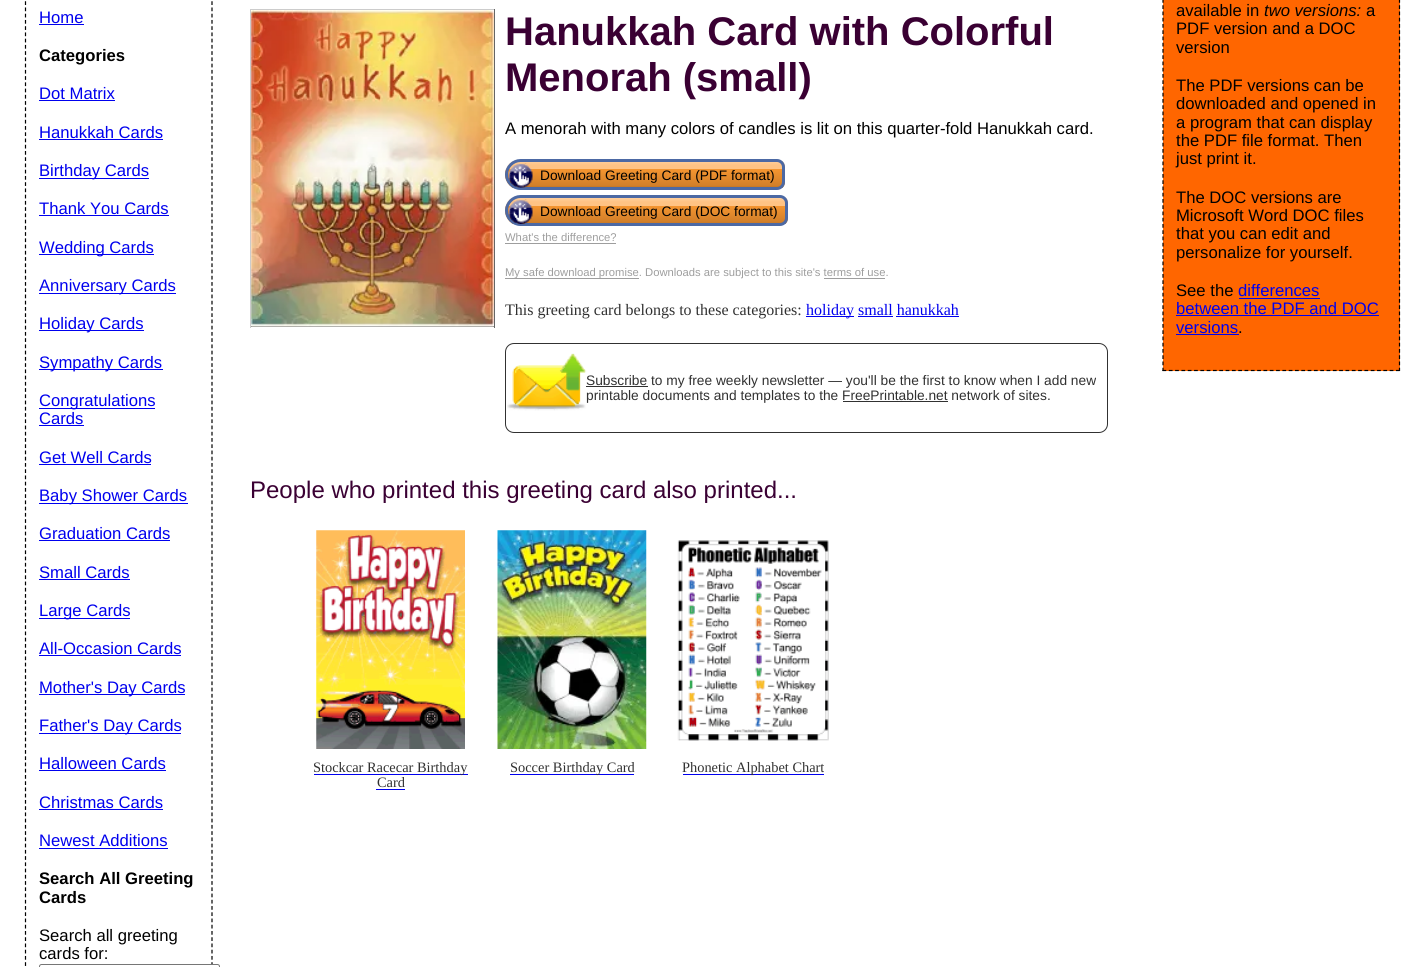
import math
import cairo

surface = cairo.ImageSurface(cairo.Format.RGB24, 1425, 967)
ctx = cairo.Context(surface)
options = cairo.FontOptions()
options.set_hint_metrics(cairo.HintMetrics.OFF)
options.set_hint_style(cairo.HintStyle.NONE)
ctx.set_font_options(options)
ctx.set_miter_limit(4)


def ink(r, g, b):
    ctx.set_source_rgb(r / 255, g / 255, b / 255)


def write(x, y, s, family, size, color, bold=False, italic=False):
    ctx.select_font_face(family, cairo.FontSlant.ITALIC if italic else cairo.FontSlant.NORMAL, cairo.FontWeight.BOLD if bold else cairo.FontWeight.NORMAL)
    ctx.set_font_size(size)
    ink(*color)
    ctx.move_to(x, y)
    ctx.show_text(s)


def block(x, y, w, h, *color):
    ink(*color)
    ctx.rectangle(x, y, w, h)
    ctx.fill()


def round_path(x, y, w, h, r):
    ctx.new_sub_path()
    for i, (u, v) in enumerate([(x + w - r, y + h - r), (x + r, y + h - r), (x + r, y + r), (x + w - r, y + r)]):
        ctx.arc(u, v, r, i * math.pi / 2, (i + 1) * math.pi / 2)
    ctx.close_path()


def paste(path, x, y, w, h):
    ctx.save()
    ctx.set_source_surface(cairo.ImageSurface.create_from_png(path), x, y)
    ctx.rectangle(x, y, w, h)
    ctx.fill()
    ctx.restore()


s1 = dict(family="Liberation Sans", size=16.65, color=(0, 0, 238))
s2 = dict(family="Liberation Sans", size=16.65, color=(0, 0, 0), bold=True)
s3 = dict(family="Liberation Sans", size=16.65, color=(0, 0, 0))
s4 = dict(family="Liberation Sans", size=40, color=(58, 0, 51), bold=True)
s5 = dict(family="Liberation Sans", size=13.75, color=(0, 0, 0))
s6 = dict(family="Liberation Sans", size=11.25, color=(158, 158, 158))
s7 = dict(family="Liberation Serif", size=16, color=(49, 49, 49))
s8 = dict(family="Liberation Serif", size=16, color=(0, 0, 238))
s9 = dict(family="Liberation Sans", size=13.75, color=(49, 49, 49))
s10 = dict(family="Liberation Sans", size=24, color=(58, 0, 51))
s11 = dict(family="Liberation Serif", size=14.4, color=(49, 49, 49))
s12 = dict(family="Liberation Sans", size=16.65, color=(0, 0, 0), italic=True)

ink(255, 255, 255)
ctx.paint()
ctx.new_path()
ctx.move_to(212, -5)
ctx.line_to(212, 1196)
ink(0, 0, 0)
ctx.set_line_width(1.2)
ctx.set_dash([3.75, 2.49])
ctx.stroke()
ctx.new_path()
ctx.move_to(25.5, -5)
ctx.line_to(25.5, 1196)
ctx.stroke()
write(39, 23, "Home", **s1)
block(39, 24, 45, 1, 0, 0, 238)
write(39, 61, "Categories", **s2)
write(39, 99, "Dot Matrix", **s1)
block(39, 100, 76, 1, 0, 0, 238)
write(39, 138, "Hanukkah Cards", **s1)
block(39, 139, 124, 1, 0, 0, 238)
block(39, 178, 110, 1, 0, 0, 238)
write(39, 176, "Birthday Cards", **s1)
write(39, 214, "Thank You Cards", **s1)
block(39, 215, 130, 1, 0, 0, 238)
block(39, 254, 115, 1, 0, 0, 238)
write(39, 253, "Wedding Cards", **s1)
block(39, 293, 137, 1, 0, 0, 238)
write(39, 291, "Anniversary Cards", **s1)
block(39, 330, 105, 1, 0, 0, 238)
write(39, 329, "Holiday Cards", **s1)
block(39, 369, 124, 1, 0, 0, 238)
write(39, 368, "Sympathy Cards", **s1)
block(39, 408, 116, 1, 0, 0, 238)
write(39, 406, "Congratulations", **s1)
write(39, 424, "Cards", **s1)
block(39, 425, 45, 1, 0, 0, 238)
write(39, 463, "Get Well Cards", **s1)
block(39, 464, 112, 1, 0, 0, 238)
block(39, 503, 149, 1, 0, 0, 238)
write(39, 501, "Baby Shower Cards", **s1)
write(39, 539, "Graduation Cards", **s1)
block(39, 540, 131, 1, 0, 0, 238)
write(39, 578, "Small Cards", **s1)
block(39, 579, 91, 1, 0, 0, 238)
block(39, 618, 91, 1, 0, 0, 238)
write(39, 616, "Large Cards", **s1)
write(39, 654, "All-Occasion Cards", **s1)
block(39, 655, 142, 1, 0, 0, 238)
block(39, 694, 146, 1, 0, 0, 238)
write(39, 693, "Mother's Day Cards", **s1)
block(39, 733, 142, 1, 0, 0, 238)
write(39, 731, "Father's Day Cards", **s1)
write(39, 769, "Halloween Cards", **s1)
block(39, 770, 127, 1, 0, 0, 238)
write(39, 808, "Christmas Cards", **s1)
block(39, 809, 124, 1, 0, 0, 238)
write(39, 846, "Newest Additions", **s1)
block(39, 848, 129, 1, 0, 0, 238)
write(39, 884, "Search All Greeting", **s2)
write(39, 903, "Cards", **s2)
write(39, 941, "Search all greeting", **s3)
write(39, 959, "cards for:", **s3)
ink(255, 255, 255)
round_path(39.5, 964.5, 180, 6, 2)
ctx.fill_preserve()
ink(118, 118, 118)
ctx.set_line_width(1)
ctx.set_dash([])
ctx.stroke()
block(250, 9, 245, 1, 204, 204, 204)
block(494, 9, 1, 319, 102, 102, 102)
block(250, 326, 245, 1, 102, 102, 102)
block(250, 9, 1, 319, 204, 204, 204)
paste("pic1.png", 251, 10, 243, 317)
write(505, 45, "Hanukkah Card with Colorful", **s4)
write(505, 91, "Menorah (small)", **s4)
write(505, 134, "A menorah with many colors of candles is lit on this quarter-fold Hanukkah card.", **s3)
ctx.save()
ctx.new_path()
ctx.move_to(520.5, 159)
ctx.line_to(777, 159)
ctx.curve_to(781.5, 159, 785, 162.5, 785, 167)
ctx.line_to(785, 182)
ctx.curve_to(785, 186.5, 781.5, 190, 777, 190)
ctx.line_to(520.5, 190)
ctx.curve_to(512, 190, 505, 183, 505, 174.5)
ctx.curve_to(505, 166, 512, 159, 520.5, 159)
ctx.close_path()
ctx.clip()
gradient = cairo.LinearGradient(645, 161, 645, 188)
gradient.add_color_stop_rgba(0, 1, 0.816, 0.62, 1)
gradient.add_color_stop_rgba(0.15, 1, 0.765, 0.518, 1)
gradient.add_color_stop_rgba(0.3, 1, 0.765, 0.518, 1)
gradient.add_color_stop_rgba(0.31, 0.957, 0.584, 0.188, 1)
gradient.add_color_stop_rgba(0.94, 0.816, 0.494, 0.161, 1)
gradient.add_color_stop_rgba(0.95, 0.749, 0.455, 0.145, 1)
gradient.add_color_stop_rgba(1, 0.643, 0.392, 0.125, 1)
ctx.set_source(gradient)
ctx.rectangle(505, 161, 280, 27)
ctx.fill()
ctx.restore()
ctx.new_path()
ctx.move_to(520.5, 160.5)
ctx.line_to(777, 160.5)
ctx.curve_to(780.5, 160.5, 783.5, 163.5, 783.5, 167)
ctx.line_to(783.5, 182)
ctx.curve_to(783.5, 185.5, 780.5, 188.5, 777, 188.5)
ctx.line_to(520.5, 188.5)
ctx.curve_to(513, 188.5, 506.5, 182, 506.5, 174.5)
ctx.curve_to(506.5, 167, 513, 160.5, 520.5, 160.5)
ctx.close_path()
ink(76, 105, 164)
ctx.set_line_width(3)
ctx.stroke()
paste("pic2.png", 508, 163, 25, 25)
write(540, 180, "Download Greeting Card (PDF format)", **s5)
ctx.save()
ctx.new_path()
ctx.move_to(520.5, 195)
ctx.line_to(780, 195)
ctx.curve_to(784.5, 195, 788, 198.5, 788, 203)
ctx.line_to(788, 218)
ctx.curve_to(788, 222.5, 784.5, 226, 780, 226)
ctx.line_to(520.5, 226)
ctx.curve_to(512, 226, 505, 219, 505, 210.5)
ctx.curve_to(505, 202, 512, 195, 520.5, 195)
ctx.close_path()
ctx.clip()
gradient = cairo.LinearGradient(646, 198, 646, 224)
gradient.add_color_stop_rgba(0, 1, 0.816, 0.62, 1)
gradient.add_color_stop_rgba(0.15, 1, 0.765, 0.518, 1)
gradient.add_color_stop_rgba(0.3, 1, 0.765, 0.518, 1)
gradient.add_color_stop_rgba(0.31, 0.957, 0.584, 0.188, 1)
gradient.add_color_stop_rgba(0.94, 0.816, 0.494, 0.161, 1)
gradient.add_color_stop_rgba(0.95, 0.749, 0.455, 0.145, 1)
gradient.add_color_stop_rgba(1, 0.643, 0.392, 0.125, 1)
ctx.set_source(gradient)
ctx.rectangle(505, 198, 283, 26)
ctx.fill()
ctx.restore()
ctx.new_path()
ctx.move_to(520.5, 196.5)
ctx.line_to(780, 196.5)
ctx.curve_to(783.5, 196.5, 786.5, 199.5, 786.5, 203)
ctx.line_to(786.5, 218)
ctx.curve_to(786.5, 221.5, 783.5, 224.5, 780, 224.5)
ctx.line_to(520.5, 224.5)
ctx.curve_to(513, 224.5, 506.5, 218, 506.5, 210.5)
ctx.curve_to(506.5, 203, 513, 196.5, 520.5, 196.5)
ctx.close_path()
ink(76, 105, 164)
ctx.stroke()
paste("pic3.png", 508, 199, 25, 25)
write(540, 216, "Download Greeting Card (DOC format)", **s5)
write(505, 241, "What's the difference?", **s6)
block(505, 243, 111, 1, 158, 158, 158)
block(505, 278, 134, 1, 158, 158, 158)
write(505, 276, "My safe download promise. Downloads are subject to this site's terms of use.", **s6)
block(824, 278, 61, 1, 158, 158, 158)
write(505, 315, "This greeting card belongs to these categories:", **s7)
block(806, 316, 48, 1, 0, 0, 238)
write(806, 315, "holiday small hanukkah", **s8)
block(858, 316, 35, 1, 0, 0, 238)
block(896, 316, 63, 1, 0, 0, 238)
round_path(505.5, 343.5, 602, 89, 8.5)
ink(49, 49, 49)
ctx.set_line_width(1)
ctx.stroke()
paste("pic4.png", 507, 353, 80, 58)
block(586, 386, 62, 1, 49, 49, 49)
write(586, 385, "Subscribe to my free weekly newsletter — you'll be the first to know when I add new", **s9)
write(586, 400, "printable documents and templates to the FreePrintable.net network of sites.", **s9)
block(843, 401, 105, 1, 49, 49, 49)
write(250, 498, "People who printed this greeting card also printed...", **s10)
paste("pic5.png", 316, 530, 149, 219)
block(314, 774, 154, 1, 0, 0, 238)
write(313, 772, "Stockcar Racecar Birthday", **s11)
write(377, 787, "Card", **s11)
block(376, 789, 29, 1, 0, 0, 238)
paste("pic6.png", 497, 530, 150, 219)
block(510, 774, 124, 1, 0, 0, 238)
write(510, 772, "Soccer Birthday Card", **s11)
paste("pic7.png", 677, 540, 152, 201)
block(683, 774, 141, 1, 0, 0, 238)
write(682, 772, "Phonetic Alphabet Chart", **s11)
block(1163, 0, 237, 371, 255, 102, 0)
ctx.new_path()
ctx.move_to(1399.5, -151)
ctx.line_to(1399.5, 371)
ink(0, 0, 0)
ctx.set_line_width(1.2)
ctx.set_dash([3.75, 2.5])
ctx.stroke()
ctx.new_path()
ctx.move_to(1162.5, 370.5)
ctx.line_to(1400, 370.5)
ctx.set_dash([3.75, 2.56])
ctx.stroke()
ctx.new_path()
ctx.move_to(1163, -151)
ctx.line_to(1163, 371)
ctx.set_dash([3.75, 2.5])
ctx.stroke()
write(1176, 16, "available in", **s3)
write(1264, 16, "two versions:", **s12)
write(1366, 16, "a", **s3)
write(1176, 34, "PDF version and a DOC", **s3)
write(1176, 53, "version", **s3)
write(1176, 91, "The PDF versions can be", **s3)
write(1176, 109, "downloaded and opened in", **s3)
write(1176, 128, "a program that can display", **s3)
write(1176, 146, "the PDF file format. Then", **s3)
write(1176, 164, "just print it.", **s3)
write(1176, 203, "The DOC versions are", **s3)
write(1176, 221, "Microsoft Word DOC files", **s3)
write(1176, 239, "that you can edit and", **s3)
write(1176, 258, "personalize for yourself.", **s3)
write(1176, 296, "See the", **s3)
write(1238, 296, "differences", **s1)
block(1239, 298, 81, 1, 0, 0, 238)
write(1176, 314, "between the PDF and DOC", **s1)
block(1176, 315, 203, 1, 0, 0, 238)
write(1176, 333, "versions", **s1)
block(1176, 334, 63, 1, 0, 0, 238)
write(1238, 333, ".", **s3)
surface.write_to_png("screenshot.png")
